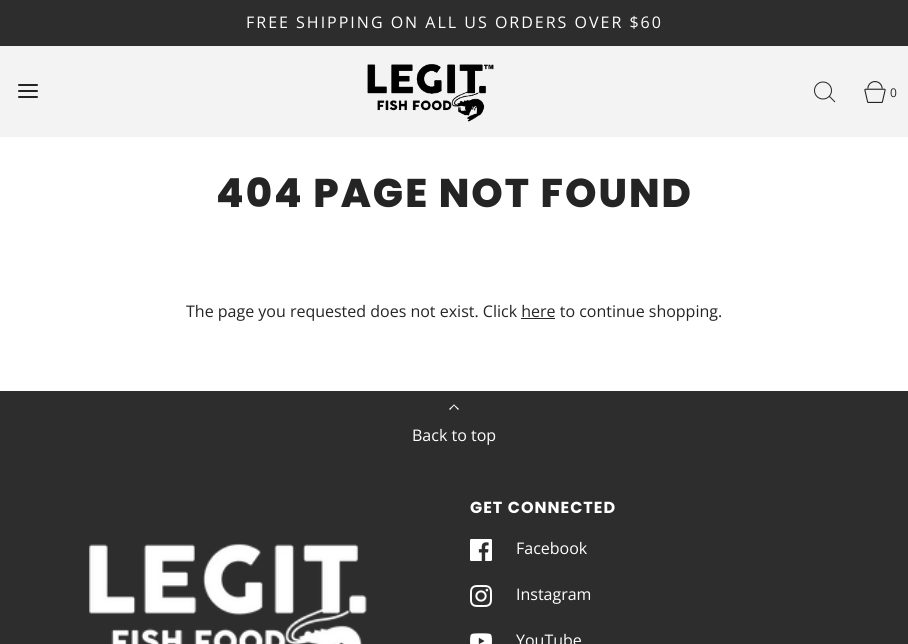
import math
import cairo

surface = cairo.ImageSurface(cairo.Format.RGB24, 908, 644)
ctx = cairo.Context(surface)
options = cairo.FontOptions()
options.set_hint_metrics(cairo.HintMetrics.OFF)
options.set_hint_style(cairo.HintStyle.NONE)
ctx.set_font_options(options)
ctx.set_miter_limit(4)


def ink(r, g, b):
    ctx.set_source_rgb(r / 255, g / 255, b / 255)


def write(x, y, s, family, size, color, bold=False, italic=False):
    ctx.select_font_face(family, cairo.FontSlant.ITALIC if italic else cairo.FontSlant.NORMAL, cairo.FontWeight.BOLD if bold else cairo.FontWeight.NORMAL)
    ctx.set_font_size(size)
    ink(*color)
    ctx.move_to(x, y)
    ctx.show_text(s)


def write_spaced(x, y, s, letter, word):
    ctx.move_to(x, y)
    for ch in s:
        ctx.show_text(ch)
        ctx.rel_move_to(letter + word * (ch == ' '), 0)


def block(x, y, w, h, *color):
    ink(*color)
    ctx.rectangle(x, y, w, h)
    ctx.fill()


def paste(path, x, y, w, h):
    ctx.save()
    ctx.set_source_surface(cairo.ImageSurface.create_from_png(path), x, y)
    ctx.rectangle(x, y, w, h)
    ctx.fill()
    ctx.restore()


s1 = dict(family="Open Sans", size=12, color=(36, 36, 36))
s2 = dict(family="Open Sans", size=16, color=(36, 36, 36))
s3 = dict(family="Open Sans", size=16, color=(255, 255, 255))

ink(255, 255, 255)
ctx.paint()
block(0, 0, 908, 46, 45, 45, 45)
ctx.select_font_face("Open Sans")
ctx.set_font_size(16)
ink(255, 255, 255)
write_spaced(246, 28, "FREE SHIPPING ON ALL US ORDERS OVER $60", 2, 0)
block(0, 46, 908, 91, 243, 243, 243)
ctx.new_path()
ctx.move_to(19, 91)
ctx.line_to(37, 91)
ctx.move_to(19, 85)
ctx.line_to(37, 85)
ctx.move_to(19, 97)
ctx.line_to(37, 97)
ink(36, 36, 36)
ctx.set_line_cap(cairo.LineCap.ROUND)
ctx.set_line_join(cairo.LineJoin.ROUND)
ctx.stroke()
paste("pic1.png", 367, 64, 127, 58)
ctx.arc(823, 90.5, 8.5, 0, 2 * math.pi)
ctx.set_line_width(1)
ctx.set_line_cap(cairo.LineCap.BUTT)
ctx.set_line_join(cairo.LineJoin.MITER)
ctx.stroke()
ctx.new_path()
ctx.move_to(829, 96)
ctx.line_to(835, 102)
ctx.stroke()
paste("pic2.png", 864, 81, 22, 22)
write(890, 97, "0", **s1)
ctx.select_font_face("Poppins ExtraBold")
ctx.set_font_size(40)
write_spaced(216, 207, "404 PAGE NOT FOUND", 2, 0)
write(186, 317, "The page you requested does not exist. Click here to continue shopping.", **s2)
block(521, 318, 34, 1, 36, 36, 36)
block(0, 391, 908, 253, 45, 45, 45)
ink(255, 255, 255)
ctx.new_path()
ctx.move_to(450, 410)
ctx.line_to(449, 409)
ctx.line_to(454, 404.5)
ctx.line_to(454.5, 405)
ctx.close_path()
ctx.fill()
ctx.new_path()
ctx.move_to(458, 410)
ctx.line_to(453.5, 405)
ctx.line_to(454, 404.5)
ctx.line_to(459, 409)
ctx.close_path()
ctx.fill()
write(412, 441, "Back to top", **s3)
paste("pic3.png", 89, 543, 278, 101)
ctx.select_font_face("Poppins", cairo.FontSlant.NORMAL, cairo.FontWeight.BOLD)
write_spaced(470, 513, "GET CONNECTED", 1, 0)
paste("pic4.png", 470, 539, 22, 22)
write(516, 554, "Facebook", **s3)
paste("pic5.png", 470, 585, 22, 22)
write(516, 600, "Instagram", **s3)
paste("pic6.png", 470, 633, 22, 11)
write(516, 646, "YouTube", **s3)
surface.write_to_png("screenshot.png")
